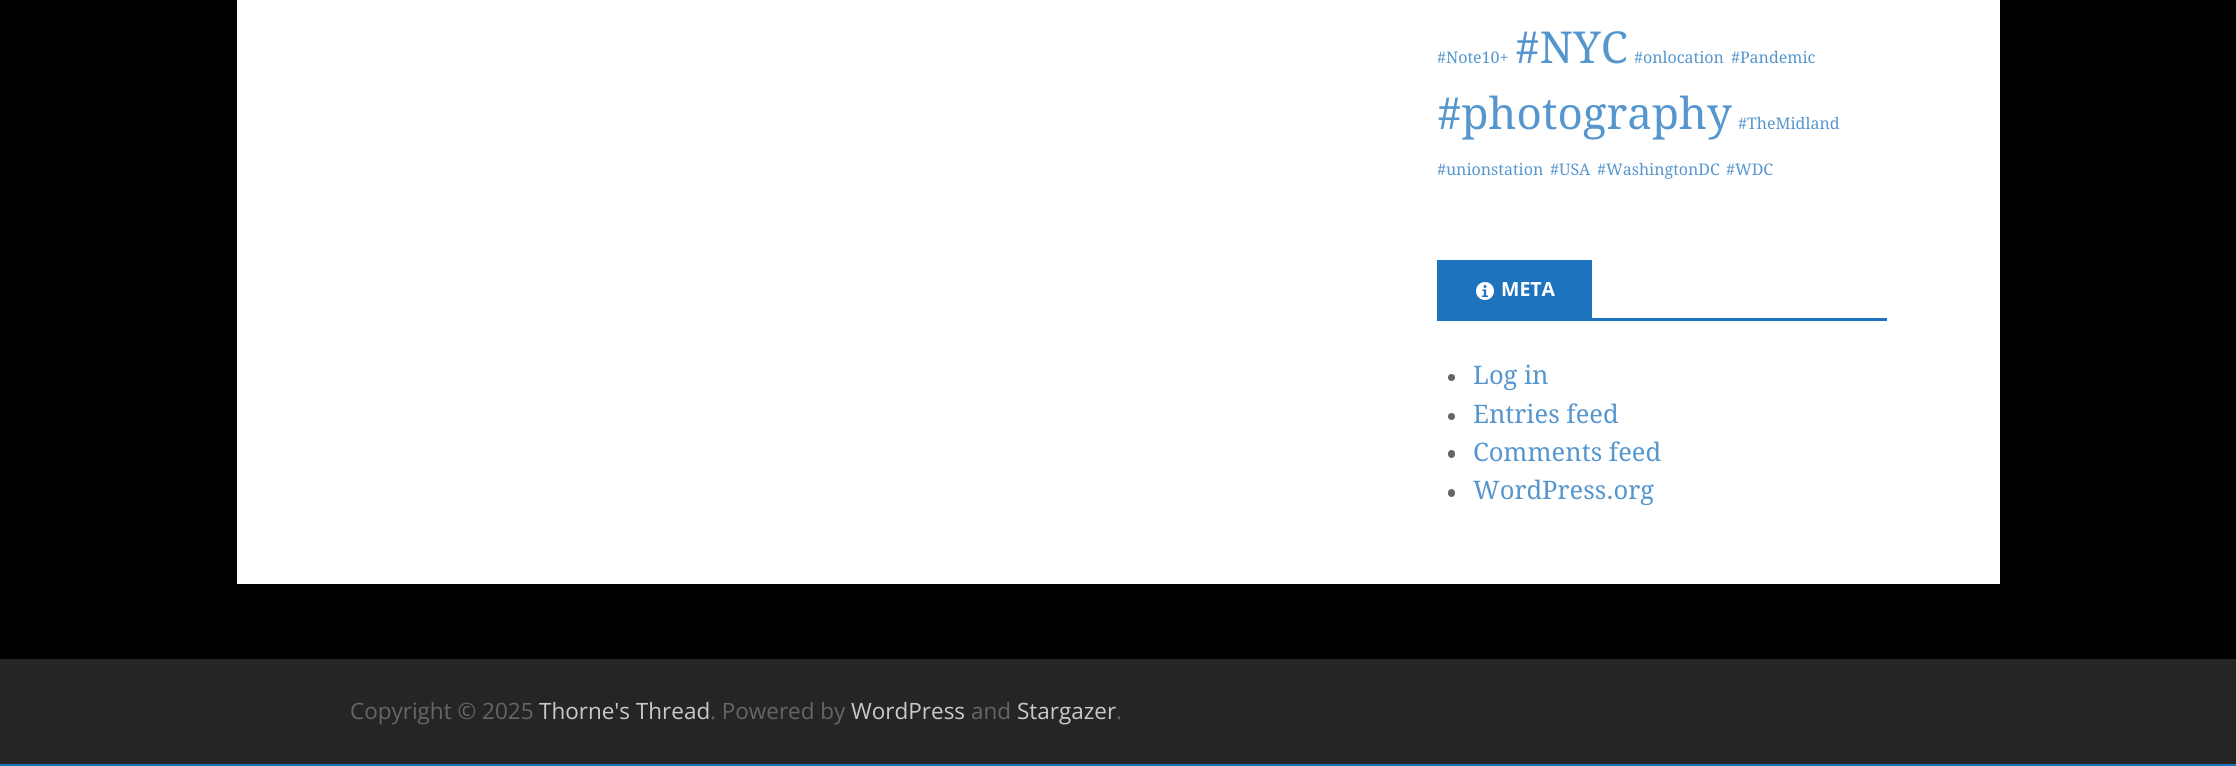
import math
import cairo

surface = cairo.ImageSurface(cairo.Format.RGB24, 2236, 766)
ctx = cairo.Context(surface)
options = cairo.FontOptions()
options.set_hint_metrics(cairo.HintMetrics.OFF)
options.set_hint_style(cairo.HintStyle.NONE)
ctx.set_font_options(options)
ctx.set_miter_limit(4)


def ink(r, g, b):
    ctx.set_source_rgb(r / 255, g / 255, b / 255)


def write(x, y, s, family, size, color, bold=False, italic=False):
    ctx.select_font_face(family, cairo.FontSlant.ITALIC if italic else cairo.FontSlant.NORMAL, cairo.FontWeight.BOLD if bold else cairo.FontWeight.NORMAL)
    ctx.set_font_size(size)
    ink(*color)
    ctx.move_to(x, y)
    ctx.show_text(s)


def block(x, y, w, h, *color):
    ink(*color)
    ctx.rectangle(x, y, w, h)
    ctx.fill()


def round_path(x, y, w, h, r):
    ctx.new_sub_path()
    for i, (u, v) in enumerate([(x + w - r, y + h - r), (x + r, y + h - r), (x + r, y + r), (x + w - r, y + r)]):
        ctx.arc(u, v, r, i * math.pi / 2, (i + 1) * math.pi / 2)
    ctx.close_path()


def paste(path, x, y, w, h):
    ctx.save()
    ctx.set_source_surface(cairo.ImageSurface.create_from_png(path), x, y)
    ctx.rectangle(x, y, w, h)
    ctx.fill()
    ctx.restore()


s1 = dict(family="Droid Serif", size=16, color=(86, 150, 206))
s2 = dict(family="Droid Serif", size=44, color=(86, 150, 206))
s3 = dict(family="Open Sans", size=19.5, color=(255, 255, 255), bold=True)
s4 = dict(family="Droid Serif", size=25.5, color=(86, 150, 206))
s5 = dict(family="Open Sans", size=22.5, color=(101, 101, 101))
s6 = dict(family="Open Sans", size=22.5, color=(201, 201, 201))

ink(0, 0, 0)
ctx.paint()
block(0, 764, 2236, 2, 30, 115, 190)
block(237, 0, 1763, 584, 255, 255, 255)
write(1437, 63, "#Note10+", **s1)
write(1515, 63, "#NYC", **s2)
write(1634, 63, "#onlocation", **s1)
write(1731, 63, "#Pandemic", **s1)
write(1437, 129, "#photography", **s2)
write(1738, 129, "#TheMidland", **s1)
write(1437, 175, "#unionstation", **s1)
write(1550, 175, "#USA", **s1)
write(1597, 175, "#WashingtonDC", **s1)
write(1726, 175, "#WDC", **s1)
block(1437, 318, 450, 3, 30, 115, 190)
block(1437, 260, 155, 58, 30, 115, 190)
paste("pic1.png", 1476, 282, 18, 18)
write(1501, 296, "META", **s3)
ink(101, 101, 101)
ctx.new_path()
ctx.arc(1451.5, 377.5, 3.5, 0, 2 * math.pi)
ctx.fill()
write(1473, 384, "Log in", **s4)
ink(101, 101, 101)
ctx.new_path()
ctx.arc(1451.5, 416.5, 3.5, 0, 2 * math.pi)
ctx.fill()
write(1473, 423, "Entries feed", **s4)
ink(101, 101, 101)
round_path(1448, 450, 7, 8, 3.5)
ctx.fill()
write(1473, 461, "Comments feed", **s4)
ink(101, 101, 101)
round_path(1448, 489, 7, 8, 3.5)
ctx.fill()
write(1473, 499, "WordPress.org", **s4)
block(0, 659, 2236, 105, 37, 37, 37)
write(350, 719, "Copyright © 2025", **s5)
write(539, 719, "Thorne's Thread", **s6)
write(710, 719, ". Powered by", **s5)
write(851, 719, "WordPress", **s6)
write(971, 719, "and", **s5)
write(1017, 719, "Stargazer", **s6)
write(1116, 719, ".", **s5)
surface.write_to_png("screenshot.png")
